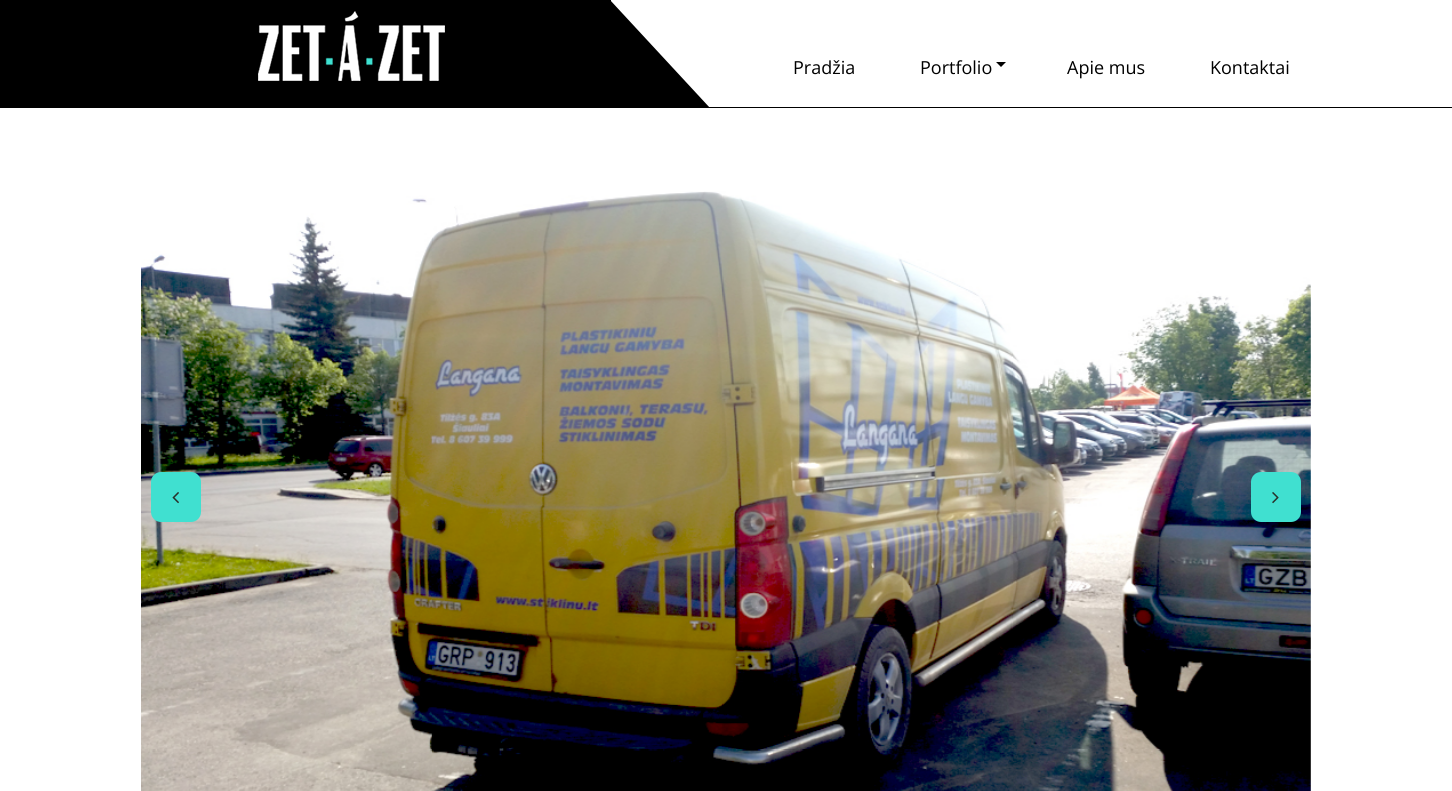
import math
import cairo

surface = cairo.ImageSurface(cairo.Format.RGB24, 1452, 791)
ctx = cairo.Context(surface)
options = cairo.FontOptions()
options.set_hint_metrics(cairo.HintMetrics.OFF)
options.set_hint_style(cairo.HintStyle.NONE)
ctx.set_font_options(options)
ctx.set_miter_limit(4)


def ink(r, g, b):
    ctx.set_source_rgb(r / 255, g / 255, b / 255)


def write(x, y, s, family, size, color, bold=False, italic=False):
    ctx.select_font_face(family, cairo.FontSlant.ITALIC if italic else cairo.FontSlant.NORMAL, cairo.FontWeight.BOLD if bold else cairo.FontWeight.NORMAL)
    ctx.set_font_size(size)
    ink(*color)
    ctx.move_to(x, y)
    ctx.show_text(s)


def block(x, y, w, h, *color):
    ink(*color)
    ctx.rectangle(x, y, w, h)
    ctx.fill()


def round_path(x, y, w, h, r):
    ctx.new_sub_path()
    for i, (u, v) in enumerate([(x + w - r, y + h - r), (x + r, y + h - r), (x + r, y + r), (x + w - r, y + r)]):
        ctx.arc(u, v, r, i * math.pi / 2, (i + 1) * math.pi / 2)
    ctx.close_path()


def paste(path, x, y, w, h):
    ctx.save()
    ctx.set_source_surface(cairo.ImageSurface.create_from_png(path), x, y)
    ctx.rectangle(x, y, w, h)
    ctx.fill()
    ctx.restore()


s1 = dict(family="Open Sans", size=18, color=(0, 0, 0))

ink(255, 255, 255)
ctx.paint()
block(709, 107, 743, 1, 0, 0, 0)
block(0, 0, 611, 108, 0, 0, 0)
paste("pic1.png", 258, 11, 187, 70)
ctx.new_path()
ctx.move_to(610, 108)
ctx.line_to(610, 0)
ctx.line_to(710, 108)
ctx.close_path()
ctx.fill()
write(793, 74, "Pradžia", **s1)
write(920, 74, "Portfolio", **s1)
ctx.new_path()
ctx.move_to(996, 62)
ctx.line_to(1006, 62)
ctx.line_to(1001, 67)
ctx.close_path()
ctx.fill()
write(1067, 74, "Apie mus", **s1)
write(1210, 74, "Kontaktai", **s1)
paste("pic2.png", 141, 191, 1170, 600)
ink(64, 224, 208)
round_path(151, 472, 50, 50, 10)
ctx.fill()
paste("pic3.png", 172, 492, 7, 12)
round_path(1251, 472, 50, 50, 10)
ctx.fill()
paste("pic4.png", 1272, 492, 7, 12)
surface.write_to_png("screenshot.png")
